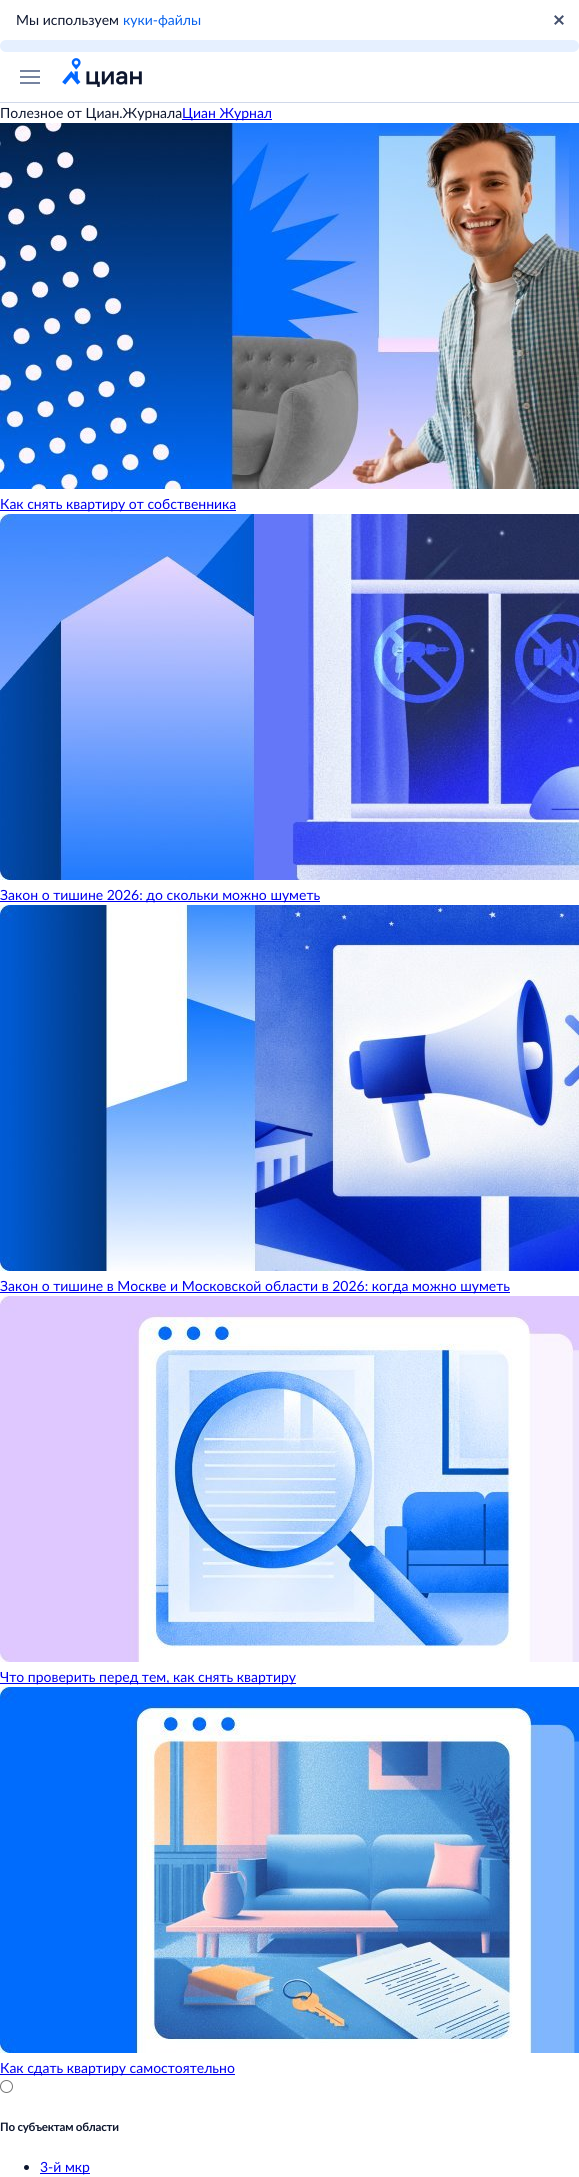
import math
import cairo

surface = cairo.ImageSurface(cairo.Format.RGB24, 579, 2177)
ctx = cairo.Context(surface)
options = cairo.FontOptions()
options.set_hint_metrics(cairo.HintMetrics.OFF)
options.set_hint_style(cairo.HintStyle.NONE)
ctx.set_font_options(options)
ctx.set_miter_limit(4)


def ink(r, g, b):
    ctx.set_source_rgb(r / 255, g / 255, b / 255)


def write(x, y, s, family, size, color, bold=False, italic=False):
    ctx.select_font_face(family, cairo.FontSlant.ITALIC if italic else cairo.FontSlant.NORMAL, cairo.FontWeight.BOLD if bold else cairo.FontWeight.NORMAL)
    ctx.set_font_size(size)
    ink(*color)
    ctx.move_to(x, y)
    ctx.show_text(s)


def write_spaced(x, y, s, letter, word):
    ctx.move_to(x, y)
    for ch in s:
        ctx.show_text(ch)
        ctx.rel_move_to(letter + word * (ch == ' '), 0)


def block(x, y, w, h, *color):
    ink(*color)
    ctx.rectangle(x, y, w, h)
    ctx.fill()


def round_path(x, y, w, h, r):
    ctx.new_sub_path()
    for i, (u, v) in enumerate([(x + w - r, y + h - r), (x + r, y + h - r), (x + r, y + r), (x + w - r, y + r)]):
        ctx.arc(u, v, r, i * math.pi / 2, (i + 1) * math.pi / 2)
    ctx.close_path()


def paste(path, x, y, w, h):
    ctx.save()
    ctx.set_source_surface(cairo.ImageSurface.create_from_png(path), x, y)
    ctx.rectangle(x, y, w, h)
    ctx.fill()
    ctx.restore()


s1 = dict(family="Lato", size=14, color=(13, 22, 46))
s2 = dict(family="Lato", size=14, color=(6, 97, 236))
s3 = dict(family="Lato", size=14, color=(0, 0, 238))

ink(255, 255, 255)
ctx.paint()
write(16, 25, "Мы используем", **s1)
write(123, 25, "куки-файлы", **s2)
paste("pic1.png", 554, 15, 10, 10)
ink(230, 240, 255)
round_path(0, 40, 579, 12, 6)
ctx.fill()
block(0, 102, 579, 1, 208, 216, 233)
paste("pic2.png", 20, 70, 20, 14)
paste("pic3.png", 62, 58, 80, 29)
write(0, 118, "Полезное от Циан.Журнала", **s1)
block(182, 119, 90, 1, 0, 0, 238)
write(182, 118, "Циан Журнал", **s3)
paste("pic4.png", 0, 123, 579, 366)
block(0, 510, 236, 1, 0, 0, 238)
write(0, 509, "Как снять квартиру от собственника", **s3)
paste("pic5.png", 0, 514, 579, 366)
block(0, 901, 320, 1, 0, 0, 238)
write(0, 900, "Закон о тишине 2026: до скольки можно шуметь", **s3)
paste("pic6.png", 0, 905, 579, 366)
block(0, 1292, 510, 1, 0, 0, 238)
write(0, 1291, "Закон о тишине в Москве и Московской области в 2026: когда можно шуметь", **s3)
paste("pic7.png", 0, 1296, 579, 366)
block(0, 1683, 296, 1, 0, 0, 238)
write(0, 1682, "Что проверить перед тем, как снять квартиру", **s3)
paste("pic8.png", 0, 1687, 579, 366)
block(0, 2074, 235, 1, 0, 0, 238)
write(0, 2073, "Как сдать квартиру самостоятельно", **s3)
ctx.new_path()
ctx.arc(6.5, 2086.5, 6, 0, 2 * math.pi)
ink(118, 118, 118)
ctx.set_line_width(1)
ctx.stroke()
ctx.select_font_face("Lato", cairo.FontSlant.NORMAL, cairo.FontWeight.BOLD)
ctx.set_font_size(11.6)
ink(13, 22, 46)
write_spaced(0, 2131, "По субъектам области", -0.25, 0)
ctx.new_path()
ctx.arc(26.5, 2167.5, 2.5, 0, 2 * math.pi)
ctx.fill()
block(40, 2173, 50, 1, 0, 0, 238)
write(40, 2172, "3-й мкр", **s3)
surface.write_to_png("screenshot.png")
